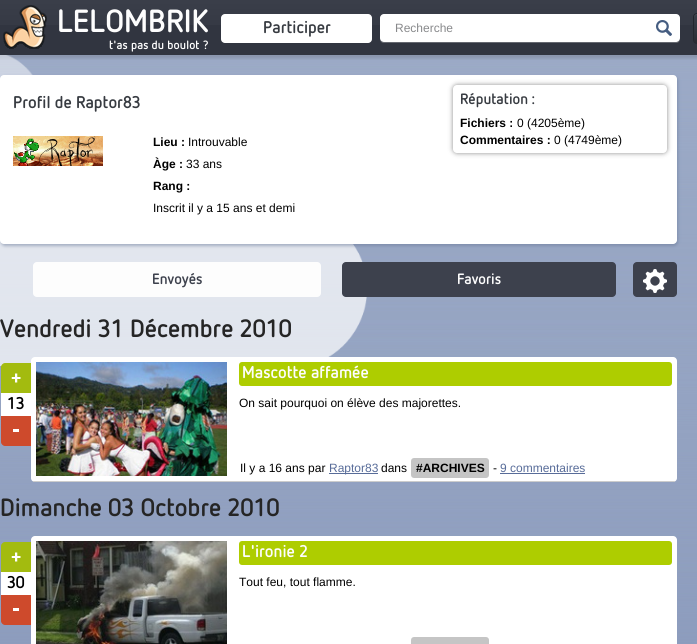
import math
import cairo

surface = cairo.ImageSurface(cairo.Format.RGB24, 697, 644)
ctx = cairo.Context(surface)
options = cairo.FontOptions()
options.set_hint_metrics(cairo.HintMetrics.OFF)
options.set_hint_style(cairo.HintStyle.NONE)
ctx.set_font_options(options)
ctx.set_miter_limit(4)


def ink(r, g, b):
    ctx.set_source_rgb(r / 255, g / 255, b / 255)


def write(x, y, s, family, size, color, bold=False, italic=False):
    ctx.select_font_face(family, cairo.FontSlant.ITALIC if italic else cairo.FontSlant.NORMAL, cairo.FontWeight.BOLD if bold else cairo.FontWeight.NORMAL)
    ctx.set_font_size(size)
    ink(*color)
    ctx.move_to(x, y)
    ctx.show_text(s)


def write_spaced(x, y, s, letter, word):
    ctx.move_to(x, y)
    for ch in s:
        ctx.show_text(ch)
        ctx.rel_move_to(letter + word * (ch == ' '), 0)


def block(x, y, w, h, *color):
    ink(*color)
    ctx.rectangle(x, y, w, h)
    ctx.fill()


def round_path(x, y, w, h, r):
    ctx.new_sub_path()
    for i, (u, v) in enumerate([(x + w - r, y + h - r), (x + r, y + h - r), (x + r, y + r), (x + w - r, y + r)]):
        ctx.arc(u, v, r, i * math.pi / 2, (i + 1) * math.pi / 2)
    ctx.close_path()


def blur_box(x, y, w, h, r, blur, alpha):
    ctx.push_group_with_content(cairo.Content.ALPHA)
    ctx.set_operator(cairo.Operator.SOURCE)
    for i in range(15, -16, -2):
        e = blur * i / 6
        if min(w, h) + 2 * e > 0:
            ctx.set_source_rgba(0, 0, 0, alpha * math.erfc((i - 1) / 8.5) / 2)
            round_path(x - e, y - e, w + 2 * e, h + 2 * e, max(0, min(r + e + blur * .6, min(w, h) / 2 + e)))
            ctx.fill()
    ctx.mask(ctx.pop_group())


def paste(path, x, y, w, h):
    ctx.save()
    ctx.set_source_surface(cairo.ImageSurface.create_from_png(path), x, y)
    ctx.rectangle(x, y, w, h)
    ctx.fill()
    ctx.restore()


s1 = dict(family="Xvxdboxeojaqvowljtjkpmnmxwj", size=32, color=(253, 253, 253), bold=True)
s2 = dict(family="Xvxdboxeojaqvowljtjkpmnmxwj", size=17, color=(55, 59, 65), bold=True)
s3 = dict(family="Liberation Sans", size=12, color=(136, 137, 139))
s4 = dict(family="Xvxdboxeojaqvowljtjkpmnmxwj", size=15, color=(55, 59, 65), bold=True)
s5 = dict(family="Liberation Sans", size=12, color=(0, 0, 0), bold=True)
s6 = dict(family="Liberation Sans", size=12, color=(0, 0, 0))
s7 = dict(family="Xvxdboxeojaqvowljtjkpmnmxwj", size=15, color=(61, 65, 77), bold=True)
s8 = dict(family="Xvxdboxeojaqvowljtjkpmnmxwj", size=15, color=(253, 253, 253), bold=True)
s9 = dict(family="Xvxdboxeojaqvowljtjkpmnmxwj", size=25, color=(37, 37, 37), bold=True)
s10 = dict(family="Xvxdboxeojaqvowljtjkpmnmxwj", size=17, color=(0, 0, 0), bold=True)
s11 = dict(family="Xvxdboxeojaqvowljtjkpmnmxwj", size=17, color=(253, 253, 253), bold=True)
s12 = dict(family="Liberation Sans", size=12, color=(88, 108, 153))

ink(255, 255, 255)
ctx.paint()
block(0, 25, 697, 30, 49, 53, 64)
paste("pic1.png", 0, 0, 697, 25)
paste("pic2.png", 3, 5, 44, 44)
write(57, 32, "LELOMBRIK", **s1)
ctx.set_font_size(12)
write_spaced(109, 49, "t'as pas du boulot ?", 0.1, 0)
ink(255, 255, 255)
round_path(221, 14, 151, 29, 4)
ctx.fill()
write(263, 33, "Participer", **s2)
ink(101, 104, 112)
ctx.new_path()
ctx.move_to(380, 38)
ctx.curve_to(380, 41, 381, 43, 384, 43)
ctx.line_to(676, 43)
ctx.curve_to(679, 43, 680, 41, 680, 38)
ctx.curve_to(680, 40, 678, 42, 676, 42)
ctx.line_to(384, 42)
ctx.curve_to(382, 42, 380, 40, 380, 38)
ctx.close_path()
ctx.fill()
ink(255, 255, 255)
round_path(380, 14, 300, 28, 4)
ctx.fill()
write(395, 32, "Recherche", **s3)
paste("pic3.png", 656, 20, 16, 16)
paste("pic4.png", 693, 13, 4, 31)
paste("pic6.png", 0, 55, 697, 589)
paste("pic5.png", 0, 55, 33, 24)
paste("pic12.png", 0, 240, 367, 126)
ink(103, 119, 150)
blur_box(1, 77, 677, 169, 4, 1.5, 0.5)
ink(255, 255, 255)
round_path(0, 75, 677, 169, 4)
ctx.fill()
write(13, 108, "Profil de Raptor83", **s2)
ink(25, 25, 25)
blur_box(453, 85, 214, 68, 4, 2.5, 0.5)
ink(255, 255, 255)
round_path(453, 85, 214, 68, 4)
ctx.fill()
write(460, 104, "Réputation :", **s4)
write(460, 127, "Fichiers :", **s5)
write(517, 127, "0 (4205ème)", **s6)
write(460, 144, "Commentaires :", **s5)
write(554, 144, "0 (4749ème)", **s6)
paste("pic7.png", 13, 136, 90, 30)
write(153, 146, "Lieu :", **s5)
write(188, 146, "Introuvable", **s6)
write(153, 168, "Àge :", **s5)
write(186, 168, "33 ans", **s6)
write(153, 190, "Rang :", **s5)
write(153, 212, "Inscrit il y a 15 ans et demi", **s6)
ink(253, 253, 253)
round_path(33, 262, 288, 35, 4)
ctx.fill()
write(152, 284, "Envoyés", **s7)
round_path(342, 262, 274, 35, 4)
ctx.fill()
write(457, 284, "Favoris", **s8)
ink(61, 65, 77)
round_path(633, 262, 44, 35, 4)
ctx.fill()
paste("pic8.png", 643, 269, 24, 24)
write(0, 337, "Vendredi 31 Décembre 2010", **s9)
ink(255, 255, 255)
round_path(31, 357, 646, 125, 4)
ctx.fill()
block(33, 481, 642, 1, 204, 204, 204)
ink(163, 187, 15)
ctx.new_path()
ctx.move_to(5, 363)
ctx.line_to(31, 363)
ctx.line_to(31, 393)
ctx.line_to(1, 393)
ctx.line_to(1, 367)
ctx.curve_to(1, 365, 3, 363, 5, 363)
ctx.close_path()
ctx.fill()
paste("pic9.png", 11, 373, 10, 10)
block(1, 393, 30, 23, 255, 255, 255)
write(7, 409, "13", **s10)
ink(206, 74, 44)
ctx.new_path()
ctx.move_to(1, 416)
ctx.line_to(31, 416)
ctx.line_to(31, 446)
ctx.line_to(5, 446)
ctx.curve_to(3, 446, 1, 444, 1, 442)
ctx.close_path()
ctx.fill()
block(13, 429, 6, 3, 255, 255, 255)
paste("pic10.png", 36, 362, 191, 114)
ink(174, 205, 0)
round_path(239, 362, 433, 24, 3)
ctx.fill()
write(242, 378, "Mascotte affamée", **s11)
write(239, 407, "On sait pourquoi on élève des majorettes.", **s6)
write(240, 472, "Il y a 16 ans par", **s6)
block(329, 473, 49, 1, 88, 108, 153)
write(329, 472, "Raptor83", **s12)
write(381, 472, "dans", **s6)
ink(197, 197, 197)
round_path(411, 458, 78, 20, 3)
ctx.fill()
write(416, 472, "#ARCHIVES", **s5)
write(493, 472, "-", **s6)
write(500, 472, "9 commentaires", **s12)
block(500, 473, 85, 1, 88, 108, 153)
write(0, 516, "Dimanche 03 Octobre 2010", **s9)
ink(255, 255, 255)
round_path(31, 536, 646, 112, 4)
ctx.fill()
ink(163, 187, 15)
ctx.new_path()
ctx.move_to(5, 542)
ctx.line_to(31, 542)
ctx.line_to(31, 572)
ctx.line_to(1, 572)
ctx.line_to(1, 546)
ctx.curve_to(1, 544, 3, 542, 5, 542)
ctx.close_path()
ctx.fill()
paste("pic9.png", 11, 552, 10, 10)
block(1, 572, 30, 23, 255, 255, 255)
write(7, 588, "30", **s10)
ink(206, 74, 44)
ctx.new_path()
ctx.move_to(1, 595)
ctx.line_to(31, 595)
ctx.line_to(31, 625)
ctx.line_to(5, 625)
ctx.curve_to(3, 625, 1, 623, 1, 621)
ctx.close_path()
ctx.fill()
block(13, 608, 6, 3, 255, 255, 255)
paste("pic11.png", 36, 541, 191, 103)
ink(174, 205, 0)
round_path(239, 541, 433, 24, 3)
ctx.fill()
write(242, 557, "L'ironie 2", **s11)
write(239, 586, "Tout feu, tout flamme.", **s6)
ink(197, 197, 197)
round_path(411, 637, 78, 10, 3)
ctx.fill()
surface.write_to_png("screenshot.png")
